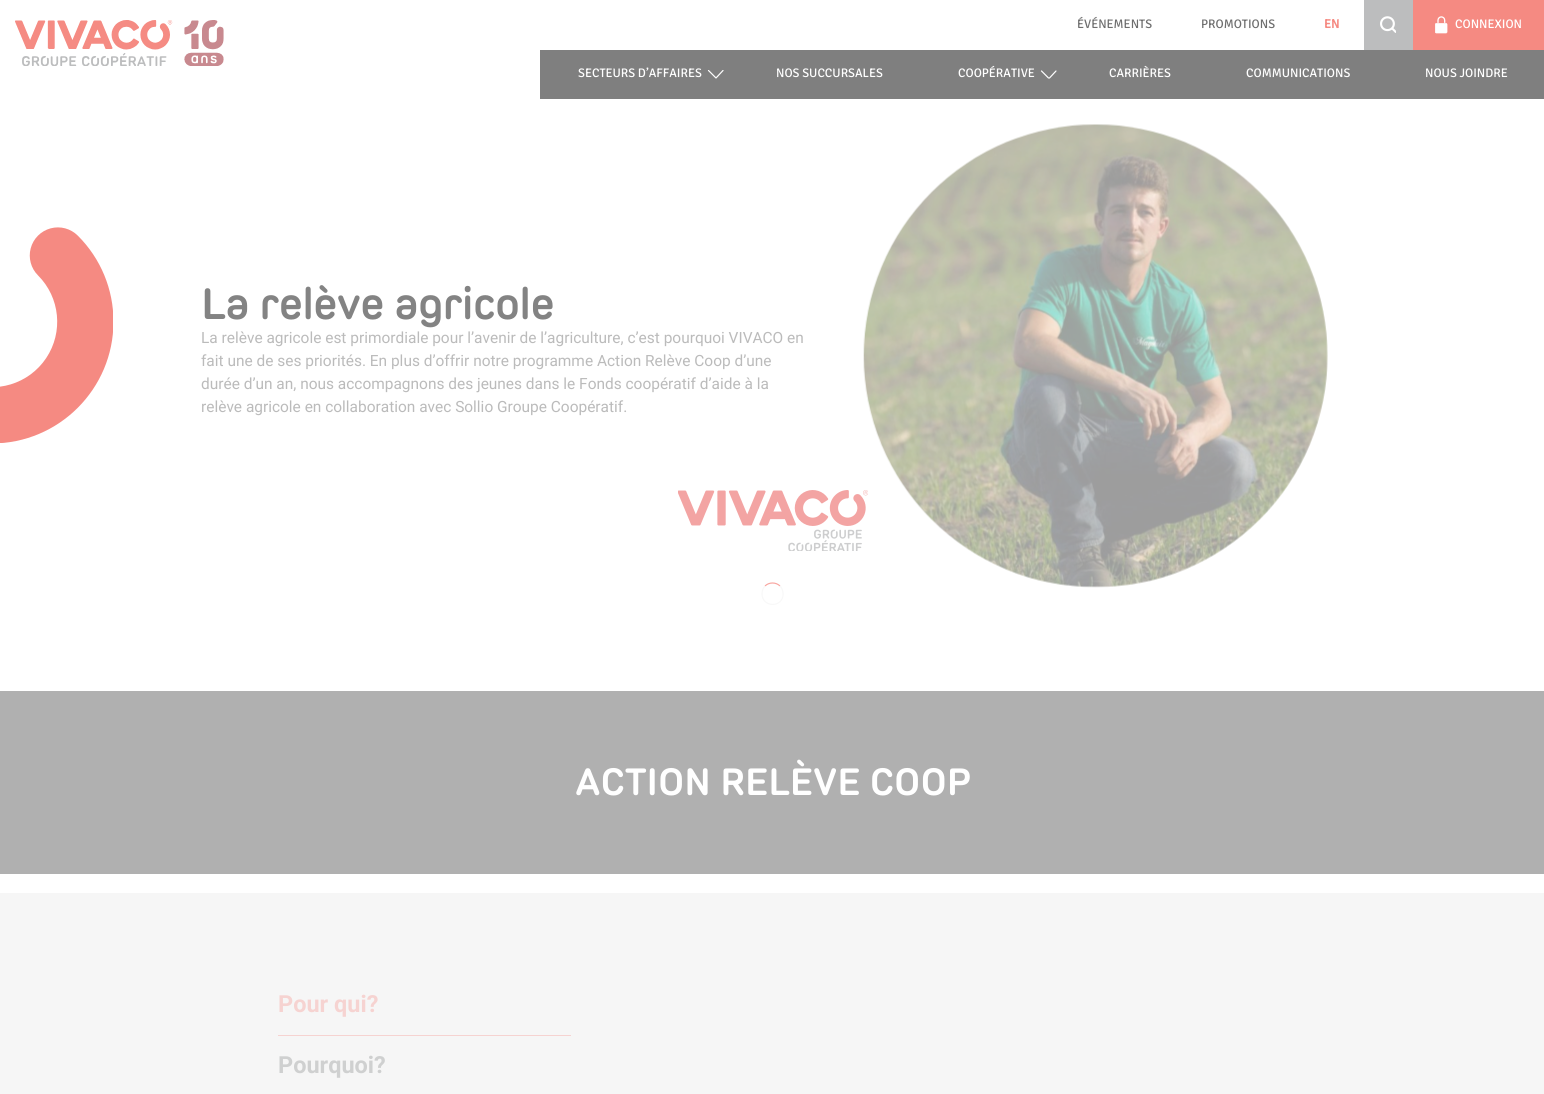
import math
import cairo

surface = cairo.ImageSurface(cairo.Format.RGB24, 1544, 1094)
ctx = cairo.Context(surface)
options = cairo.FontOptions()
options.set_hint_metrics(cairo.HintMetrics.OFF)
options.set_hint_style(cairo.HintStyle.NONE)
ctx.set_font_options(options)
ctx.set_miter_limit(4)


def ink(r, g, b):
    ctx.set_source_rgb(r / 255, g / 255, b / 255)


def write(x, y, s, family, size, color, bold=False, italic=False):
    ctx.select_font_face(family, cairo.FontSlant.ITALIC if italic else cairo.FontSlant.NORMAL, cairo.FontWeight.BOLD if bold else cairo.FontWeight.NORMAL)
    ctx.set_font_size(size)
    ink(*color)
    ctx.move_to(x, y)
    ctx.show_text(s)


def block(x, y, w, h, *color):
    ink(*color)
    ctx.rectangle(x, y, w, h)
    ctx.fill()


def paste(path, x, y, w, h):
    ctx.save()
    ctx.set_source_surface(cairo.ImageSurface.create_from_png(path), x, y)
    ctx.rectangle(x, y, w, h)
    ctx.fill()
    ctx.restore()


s1 = dict(family="Signika", size=12.4, color=(110, 110, 110))
s2 = dict(family="Signika", size=12.4, color=(245, 138, 130), bold=True)
s3 = dict(family="Signika", size=12.4, color=(255, 255, 255))
s4 = dict(family="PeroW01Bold", size=46.25, color=(131, 131, 131), bold=True)
s5 = dict(family="Roboto", size=15.45, color=(187, 187, 187))
s6 = dict(family="PeroW01Bold", size=40.25, color=(255, 255, 255), bold=True)
s7 = dict(family="Roboto", size=23.5, color=(246, 211, 209), bold=True)
s8 = dict(family="Roboto", size=23.5, color=(207, 208, 208), bold=True)

ink(255, 255, 255)
ctx.paint()
paste("pic1.png", 15, 20, 209, 46)
write(1077, 28, "ÉVÉNEMENTS", **s1)
write(1201, 28, "PROMOTIONS", **s1)
write(1324, 28, "EN", **s2)
block(1364, 0, 49, 50, 188, 189, 190)
paste("pic2.png", 1380, 16, 16, 17)
block(1413, 0, 131, 50, 245, 138, 130)
paste("pic3.png", 1435, 16, 13, 18)
write(1455, 28, "CONNEXION", **s3)
block(540, 50, 1004, 49, 127, 127, 127)
write(578, 77, "SECTEURS D’AFFAIRES", **s3)
ctx.save()
ctx.new_path()
ctx.move_to(707.5, 78.5)
ctx.line_to(707.5, 70)
ctx.line_to(724, 70)
ctx.line_to(724, 78.5)
ctx.close_path()
ctx.clip()
ctx.new_path()
ctx.move_to(708.5, 70.5)
ctx.line_to(716, 78)
ctx.line_to(723, 70.5)
ctx.set_line_width(1.2)
ctx.set_line_cap(cairo.LineCap.ROUND)
ctx.set_line_join(cairo.LineJoin.ROUND)
ctx.stroke()
ctx.restore()
write(776, 77, "NOS SUCCURSALES", **s3)
write(958, 77, "COOPÉRATIVE", **s3)
ctx.save()
ctx.new_path()
ctx.move_to(1040.5, 78.5)
ctx.line_to(1040.5, 70)
ctx.line_to(1056.5, 70)
ctx.line_to(1056.5, 78.5)
ctx.close_path()
ctx.clip()
ctx.new_path()
ctx.move_to(1041.5, 71)
ctx.line_to(1049, 78.5)
ctx.line_to(1056, 71)
ctx.set_line_width(1.2)
ctx.set_line_cap(cairo.LineCap.ROUND)
ctx.set_line_join(cairo.LineJoin.ROUND)
ctx.stroke()
ctx.restore()
write(1109, 77, "CARRIÈRES", **s3)
write(1246, 77, "COMMUNICATIONS", **s3)
write(1425, 77, "NOUS JOINDRE", **s3)
paste("pic4.png", 0, 227, 113, 216)
write(201, 319, "La relève agricole", **s4)
write(201, 343, "La relève agricole est primordiale pour l’avenir de l’agriculture, c’est pourquoi VIVACO en", **s5)
write(201, 366, "fait une de ses priorités. En plus d’offrir notre programme Action Relève Coop d’une", **s5)
write(201, 389, "durée d’un an, nous accompagnons des jeunes dans le Fonds coopératif d’aide à la", **s5)
write(201, 412, "relève agricole en collaboration avec Sollio Groupe Coopératif.", **s5)
paste("pic5.png", 863, 124, 465, 464)
paste("pic6.png", 678, 490, 190, 61)
ctx.new_path()
ctx.move_to(765, 586)
ctx.curve_to(769, 582, 776, 582, 780, 586)
ink(248, 167, 161)
ctx.set_line_width(1.2)
ctx.stroke()
ctx.new_path()
ctx.move_to(780, 586)
ctx.curve_to(782.5, 588.5, 783.5, 592.5, 783, 596)
ctx.curve_to(780.5, 608.5, 762, 606.5, 762, 594)
ctx.curve_to(762, 591, 763, 588, 765, 586)
ink(248, 248, 248)
ctx.stroke()
block(0, 691, 1544, 183, 176, 176, 176)
write(575, 795, "ACTION RELÈVE COOP", **s6)
block(0, 893, 1544, 201, 246, 246, 246)
block(278, 1035, 293, 1, 246, 211, 209)
write(278, 1012, "Pour qui?", **s7)
write(278, 1073, "Pourquoi?", **s8)
surface.write_to_png("screenshot.png")
